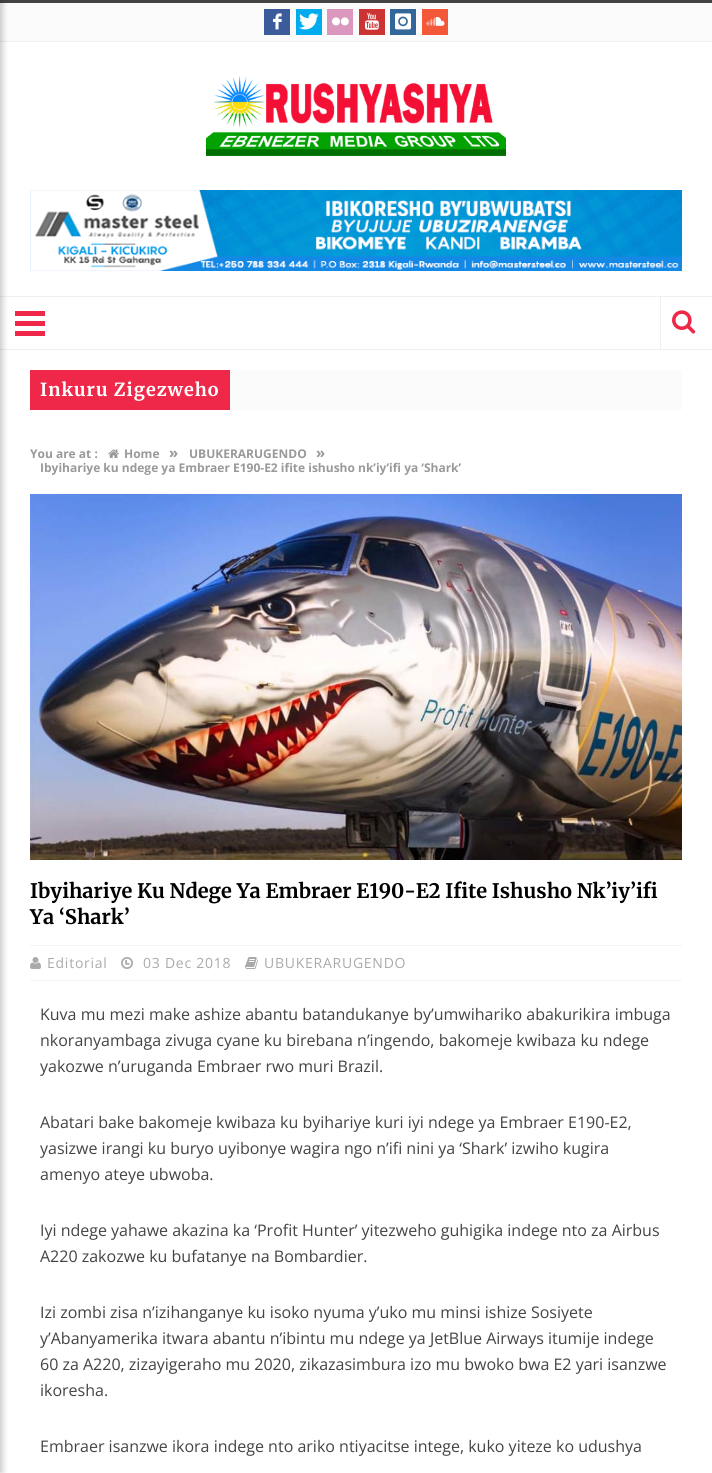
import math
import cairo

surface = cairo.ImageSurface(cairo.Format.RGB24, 712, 1473)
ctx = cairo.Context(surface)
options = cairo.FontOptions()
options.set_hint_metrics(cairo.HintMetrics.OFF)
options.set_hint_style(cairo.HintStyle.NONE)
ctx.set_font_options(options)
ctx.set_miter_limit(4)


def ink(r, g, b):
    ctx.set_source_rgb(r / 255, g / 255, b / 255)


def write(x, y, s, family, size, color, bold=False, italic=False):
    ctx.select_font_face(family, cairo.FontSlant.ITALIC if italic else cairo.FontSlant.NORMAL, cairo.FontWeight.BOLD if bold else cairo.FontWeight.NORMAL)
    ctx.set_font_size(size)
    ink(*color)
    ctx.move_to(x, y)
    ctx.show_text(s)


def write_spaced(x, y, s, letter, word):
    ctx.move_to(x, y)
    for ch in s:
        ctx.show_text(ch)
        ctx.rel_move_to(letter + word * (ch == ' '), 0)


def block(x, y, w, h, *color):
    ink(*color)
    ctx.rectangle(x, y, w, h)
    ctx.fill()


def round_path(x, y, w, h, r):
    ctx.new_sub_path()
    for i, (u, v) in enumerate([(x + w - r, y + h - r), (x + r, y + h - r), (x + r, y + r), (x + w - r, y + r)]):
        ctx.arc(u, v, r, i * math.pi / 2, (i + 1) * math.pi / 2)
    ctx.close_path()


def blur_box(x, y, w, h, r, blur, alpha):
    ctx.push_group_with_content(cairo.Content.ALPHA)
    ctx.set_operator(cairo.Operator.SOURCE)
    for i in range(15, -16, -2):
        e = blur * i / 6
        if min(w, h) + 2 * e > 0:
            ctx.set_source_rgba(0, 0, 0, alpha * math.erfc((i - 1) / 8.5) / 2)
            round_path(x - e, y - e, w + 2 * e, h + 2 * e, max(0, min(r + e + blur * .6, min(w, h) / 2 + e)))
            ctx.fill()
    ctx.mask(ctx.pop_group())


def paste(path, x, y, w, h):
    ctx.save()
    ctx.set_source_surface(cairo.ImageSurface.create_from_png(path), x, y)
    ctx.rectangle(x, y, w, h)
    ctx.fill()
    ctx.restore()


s1 = dict(family="Open Sans", size=12, color=(153, 153, 153), bold=True)
s2 = dict(family="Open Sans", size=15, color=(153, 153, 153), bold=True)
s3 = dict(family="Merriweather", size=20, color=(0, 0, 0), bold=True)
s4 = dict(family="Open Sans", size=16, color=(68, 68, 68))

ink(255, 255, 255)
ctx.paint()
block(0, 3, 712, 38, 251, 251, 251)
block(0, 0, 712, 3, 68, 68, 68)
block(0, 41, 712, 1, 236, 240, 241)
block(0, 296, 712, 1, 236, 240, 241)
block(0, 349, 712, 1, 236, 240, 241)
ink(0, 0, 0)
blur_box(-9, 0, 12, 1473, 0, 3, 0.2)
block(264, 9, 26, 26, 60, 91, 155)
paste("pic1.png", 273, 13, 9, 17)
block(296, 9, 26, 26, 0, 172, 237)
paste("pic2.png", 299, 13, 20, 17)
block(327, 9, 26, 26, 219, 151, 190)
paste("pic3.png", 332, 17, 17, 9)
block(359, 9, 26, 26, 204, 51, 51)
paste("pic4.png", 365, 13, 14, 17)
block(390, 9, 26, 26, 51, 102, 153)
paste("pic5.png", 395, 13, 17, 17)
block(422, 9, 26, 26, 243, 88, 57)
paste("pic6.png", 426, 17, 19, 9)
paste("pic7.png", 206, 76, 300, 80)
paste("pic8.png", 30, 190, 652, 81)
block(15, 311, 30, 5, 239, 39, 72)
block(15, 321, 30, 5, 239, 39, 72)
block(15, 331, 30, 5, 239, 39, 72)
block(660, 297, 1, 52, 236, 240, 241)
paste("pic9.png", 672, 310, 24, 24)
block(230, 370, 452, 40, 251, 251, 251)
block(30, 370, 200, 40, 239, 39, 72)
ctx.select_font_face("Merriweather", cairo.FontSlant.NORMAL, cairo.FontWeight.BOLD)
ctx.set_font_size(18)
ink(255, 255, 255)
write_spaced(40, 396, "Inkuru Zigezweho", 1, 0)
write(30, 458, "You are at :", **s1)
paste("pic10.png", 108, 449, 11, 9)
write(124, 458, "Home", **s1)
write(169, 458, "»", **s2)
write(189, 458, "UBUKERARUGENDO", **s1)
write(316, 458, "»", **s2)
write(40, 472, "Ibyihariye ku ndege ya Embraer E190-E2 ifite ishusho nk’iy’ifi ya ‘Shark’", **s1)
paste("pic11.png", 30, 494, 652, 366)
write(30, 898, "Ibyihariye Ku Ndege Ya Embraer E190-E2 Ifite Ishusho Nk’iy’ifi", **s3)
write(30, 924, "Ya ‘Shark’", **s3)
block(30, 945, 652, 1, 243, 243, 243)
block(30, 980, 652, 1, 243, 243, 243)
paste("pic12.png", 30, 957, 11, 12)
ctx.select_font_face("Open Sans")
ctx.set_font_size(14)
ink(170, 170, 170)
write_spaced(47, 968, "Editorial", 0.75, 0)
paste("pic13.png", 121, 957, 12, 12)
write_spaced(143, 968, "03 Dec 2018", 0.75, 0)
paste("pic14.png", 245, 957, 13, 12)
write_spaced(264, 968, "UBUKERARUGENDO", 0.75, 0)
write(40, 1020, "Kuva mu mezi make ashize abantu batandukanye by’umwihariko abakurikira imbuga", **s4)
write(40, 1046, "nkoranyambaga zivuga cyane ku birebana n’ingendo, bakomeje kwibaza ku ndege", **s4)
write(40, 1072, "yakozwe n’uruganda Embraer rwo muri Brazil.", **s4)
write(40, 1128, "Abatari bake bakomeje kwibaza ku byihariye kuri iyi ndege ya Embraer E190-E2,", **s4)
write(40, 1154, "yasizwe irangi ku buryo uyibonye wagira ngo n’ifi nini ya ‘Shark’ izwiho kugira", **s4)
write(40, 1180, "amenyo ateye ubwoba.", **s4)
write(40, 1236, "Iyi ndege yahawe akazina ka ‘Profit Hunter’ yitezweho guhigika indege nto za Airbus", **s4)
write(40, 1262, "A220 zakozwe ku bufatanye na Bombardier.", **s4)
write(40, 1318, "Izi zombi zisa n’izihanganye ku isoko nyuma y’uko mu minsi ishize Sosiyete", **s4)
write(40, 1344, "y’Abanyamerika itwara abantu n’ibintu mu ndege ya JetBlue Airways itumije indege", **s4)
write(40, 1370, "60 za A220, zizayigeraho mu 2020, zikazasimbura izo mu bwoko bwa E2 yari isanzwe", **s4)
write(40, 1396, "ikoresha.", **s4)
write(40, 1452, "Embraer isanzwe ikora indege nto ariko ntiyacitse intege, kuko yiteze ko udushya", **s4)
surface.write_to_png("screenshot.png")
